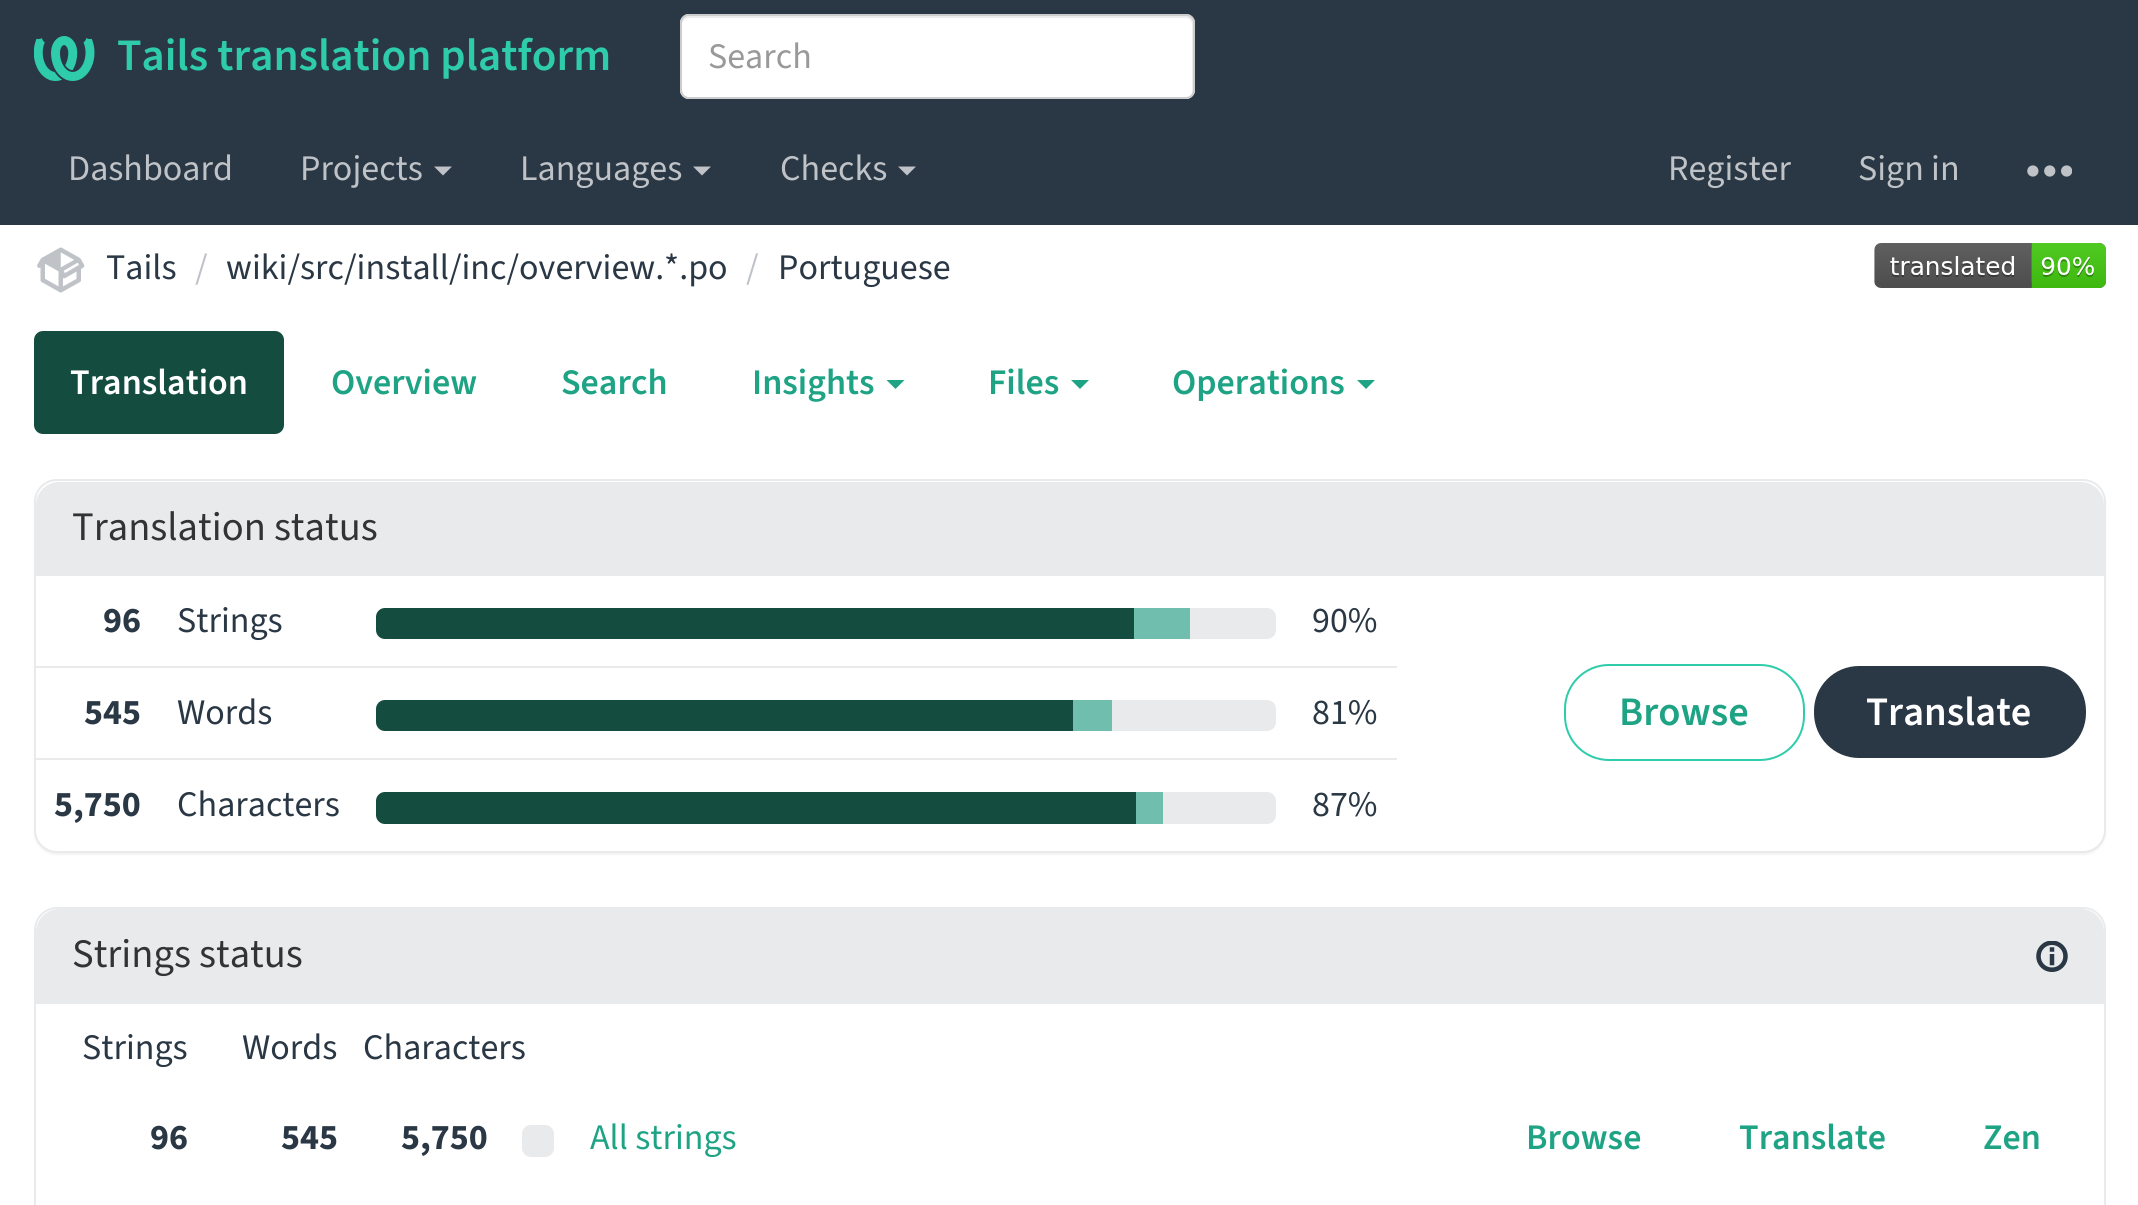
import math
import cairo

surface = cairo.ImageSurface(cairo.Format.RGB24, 2138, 1205)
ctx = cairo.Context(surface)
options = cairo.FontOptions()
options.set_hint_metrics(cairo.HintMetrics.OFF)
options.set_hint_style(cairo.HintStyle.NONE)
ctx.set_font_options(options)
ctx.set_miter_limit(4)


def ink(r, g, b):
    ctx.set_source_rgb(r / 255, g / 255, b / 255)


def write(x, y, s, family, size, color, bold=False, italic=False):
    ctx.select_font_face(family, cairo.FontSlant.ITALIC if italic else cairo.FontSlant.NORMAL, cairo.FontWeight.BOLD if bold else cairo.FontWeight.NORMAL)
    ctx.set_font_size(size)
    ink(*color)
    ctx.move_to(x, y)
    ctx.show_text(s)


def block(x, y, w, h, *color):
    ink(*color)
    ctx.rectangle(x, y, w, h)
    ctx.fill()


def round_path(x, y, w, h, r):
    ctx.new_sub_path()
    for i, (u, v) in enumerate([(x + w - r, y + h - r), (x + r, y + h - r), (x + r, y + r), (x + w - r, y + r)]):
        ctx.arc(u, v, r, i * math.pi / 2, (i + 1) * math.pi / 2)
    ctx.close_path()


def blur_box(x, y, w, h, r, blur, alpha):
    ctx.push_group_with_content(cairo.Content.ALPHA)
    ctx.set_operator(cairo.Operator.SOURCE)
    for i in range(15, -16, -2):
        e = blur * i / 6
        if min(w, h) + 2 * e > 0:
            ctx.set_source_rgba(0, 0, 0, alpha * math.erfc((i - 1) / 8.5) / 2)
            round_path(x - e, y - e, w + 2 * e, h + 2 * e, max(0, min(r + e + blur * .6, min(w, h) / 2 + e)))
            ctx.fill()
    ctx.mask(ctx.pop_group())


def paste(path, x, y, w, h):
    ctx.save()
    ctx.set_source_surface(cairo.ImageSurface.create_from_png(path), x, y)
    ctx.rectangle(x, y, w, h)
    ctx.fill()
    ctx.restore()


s1 = dict(family="Source Sans 3 SemiBold", size=45, color=(46, 204, 170))
s2 = dict(family="Source Sans 3", size=36, color=(153, 153, 153))
s3 = dict(family="Source Sans 3", size=36, color=(191, 195, 199))
s4 = dict(family="Source Sans 3", size=36, color=(42, 55, 68))
s5 = dict(family="Source Sans 3 SemiBold", size=36, color=(255, 255, 255))
s6 = dict(family="Source Sans 3 SemiBold", size=36, color=(31, 163, 133))
s7 = dict(family="Source Sans 3", size=40.5, color=(51, 51, 51))
s8 = dict(family="Source Sans 3", size=36, color=(42, 55, 68), bold=True)
s9 = dict(family="Source Sans 3 SemiBold", size=40.5, color=(31, 163, 133))
s10 = dict(family="Source Sans 3 SemiBold", size=40.5, color=(255, 255, 255))
s11 = dict(family="Source Sans 3", size=36, color=(31, 163, 133))

ink(255, 255, 255)
ctx.paint()
block(0, 0, 2138, 225, 42, 55, 68)
paste("pic1.png", 34, 36, 61, 45)
write(117, 70, "Tails translation platform", **s1)
ink(255, 255, 255)
round_path(680, 14, 515, 85, 9)
ctx.fill()
ink(236, 236, 236)
ctx.new_path()
ctx.move_to(688, 18)
ctx.line_to(1186, 18)
ctx.curve_to(1189, 18, 1192, 21, 1192, 25)
ctx.line_to(1192, 94)
ctx.curve_to(1193, 93, 1193, 91, 1193, 90)
ctx.line_to(1193, 23)
ctx.curve_to(1193, 19, 1190, 16, 1186, 16)
ctx.line_to(689, 16)
ctx.curve_to(685, 16, 682, 19, 682, 23)
ctx.line_to(682, 25)
ctx.curve_to(682, 21, 685, 18, 688, 18)
ctx.close_path()
ctx.fill()
round_path(681, 15, 513, 83, 8)
ink(204, 204, 204)
ctx.stroke()
write(708, 68, "Search", **s2)
write(68, 180, "Dashboard", **s3)
write(300, 180, "Projects", **s3)
ctx.new_path()
ctx.move_to(434, 166.5)
ctx.line_to(452, 166.5)
ctx.line_to(443, 175.5)
ctx.close_path()
ctx.fill()
write(520, 180, "Languages", **s3)
ctx.new_path()
ctx.move_to(693, 166.5)
ctx.line_to(711, 166.5)
ctx.line_to(702, 175.5)
ctx.close_path()
ctx.fill()
write(780, 180, "Checks", **s3)
ctx.new_path()
ctx.move_to(898, 166.5)
ctx.line_to(916, 166.5)
ctx.line_to(907, 175.5)
ctx.close_path()
ctx.fill()
write(1668, 180, "Register", **s3)
write(1858, 180, "Sign in", **s3)
paste("pic2.png", 2027, 165, 45, 12)
paste("pic3.png", 37, 247, 48, 46)
write(106, 279, "Tails", **s4)
write(195, 279, "/", **s3)
write(226, 279, "wiki/src/install/inc/overview.*.po", **s4)
write(746, 279, "/", **s3)
write(778, 279, "Portuguese", **s4)
paste("pic4.png", 1874, 243, 232, 45)
ink(20, 77, 63)
round_path(35, 332, 248, 101, 8)
ctx.fill_preserve()
ctx.stroke()
write(70, 394, "Translation", **s5)
write(331, 394, "Overview", **s6)
write(561, 394, "Search", **s6)
write(752, 394, "Insights", **s6)
ctx.new_path()
ctx.move_to(886.5, 380)
ctx.line_to(904.5, 380)
ctx.line_to(895.5, 389)
ctx.close_path()
ctx.fill()
write(988, 394, "Files", **s6)
ctx.new_path()
ctx.move_to(1071, 380)
ctx.line_to(1089, 380)
ctx.line_to(1080, 389)
ctx.close_path()
ctx.fill()
write(1172, 394, "Operations", **s6)
ctx.new_path()
ctx.move_to(1357, 380)
ctx.line_to(1375, 380)
ctx.line_to(1366, 389)
ctx.close_path()
ctx.fill()
ink(0, 0, 0)
blur_box(34, 482, 2072, 373, 23, 1, 0.05)
ink(255, 255, 255)
round_path(35, 480, 2070, 372, 22)
ctx.fill_preserve()
ink(233, 234, 236)
ctx.stroke()
ctx.new_path()
ctx.move_to(59, 483)
ctx.line_to(2081, 483)
ctx.curve_to(2093, 483, 2103, 493, 2103, 505)
ctx.line_to(2103, 575)
ctx.line_to(37, 575)
ctx.line_to(37, 505)
ctx.curve_to(37, 493, 47, 483, 59, 483)
ctx.close_path()
ctx.fill_preserve()
ctx.stroke()
write(72, 540, "Translation status", **s7)
write(103, 632, "96", **s8)
write(177, 632, "Strings", **s4)
ink(233, 234, 236)
round_path(376, 608, 900, 31, 9)
ctx.fill()
ink(20, 77, 63)
ctx.new_path()
ctx.move_to(385, 608)
ctx.line_to(1134, 608)
ctx.line_to(1134, 639)
ctx.line_to(385, 639)
ctx.curve_to(380, 639, 376, 635, 376, 630)
ctx.line_to(376, 617)
ctx.curve_to(376, 612, 380, 608, 385, 608)
ctx.close_path()
ctx.fill()
block(1134, 608, 56, 31, 112, 191, 174)
write(1312, 632, "90%", **s4)
round_path(1565, 665, 239, 95, 44)
ink(46, 204, 170)
ctx.stroke()
write(1619, 725, "Browse", **s9)
ink(42, 55, 68)
round_path(1814, 666, 272, 92, 45)
ctx.fill()
write(1866, 725, "Translate", **s10)
write(84, 724, "545", **s8)
write(177, 724, "Words", **s4)
ink(233, 234, 236)
round_path(376, 700, 900, 31, 9)
ctx.fill()
ink(20, 77, 63)
ctx.new_path()
ctx.move_to(385, 700)
ctx.line_to(1073, 700)
ctx.line_to(1073, 731)
ctx.line_to(385, 731)
ctx.curve_to(380, 731, 376, 727, 376, 722)
ctx.line_to(376, 709)
ctx.curve_to(376, 704, 380, 700, 385, 700)
ctx.close_path()
ctx.fill()
block(1073, 700, 39, 31, 112, 191, 174)
block(36, 666, 1361, 2, 233, 234, 236)
write(1312, 724, "81%", **s4)
write(54, 816, "5,750", **s8)
write(177, 816, "Characters", **s4)
ink(233, 234, 236)
round_path(376, 792, 900, 32, 9)
ctx.fill()
ink(20, 77, 63)
ctx.new_path()
ctx.move_to(385, 792)
ctx.line_to(1136, 792)
ctx.line_to(1136, 824)
ctx.line_to(385, 824)
ctx.curve_to(380, 824, 376, 820, 376, 815)
ctx.line_to(376, 801)
ctx.curve_to(376, 796, 380, 792, 385, 792)
ctx.close_path()
ctx.fill()
block(1136, 792, 27, 32, 112, 191, 174)
block(36, 758, 1361, 2, 233, 234, 236)
write(1312, 816, "87%", **s4)
round_path(35, 908, 2070, 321, 22)
ink(233, 234, 236)
ctx.stroke()
ctx.new_path()
ctx.move_to(59, 910)
ctx.line_to(2081, 910)
ctx.curve_to(2093, 910, 2103, 920, 2103, 932)
ctx.line_to(2103, 1003)
ctx.line_to(37, 1003)
ctx.line_to(37, 932)
ctx.curve_to(37, 920, 47, 910, 59, 910)
ctx.close_path()
ctx.fill_preserve()
ctx.stroke()
write(72, 967, "Strings status", **s7)
paste("pic5.png", 2036, 941, 32, 31)
write(82, 1059, "Strings", **s4)
write(242, 1059, "Words", **s4)
write(363, 1059, "Characters", **s4)
write(150, 1149, "96", **s8)
write(281, 1149, "545", **s8)
write(401, 1149, "5,750", **s8)
ink(233, 234, 236)
round_path(522, 1125, 32, 32, 9)
ctx.fill()
write(590, 1149, "All strings", **s11)
write(1526, 1149, "Browse", **s6)
write(1739, 1149, "Translate", **s6)
write(1983, 1149, "Zen", **s6)
surface.write_to_png("screenshot.png")
